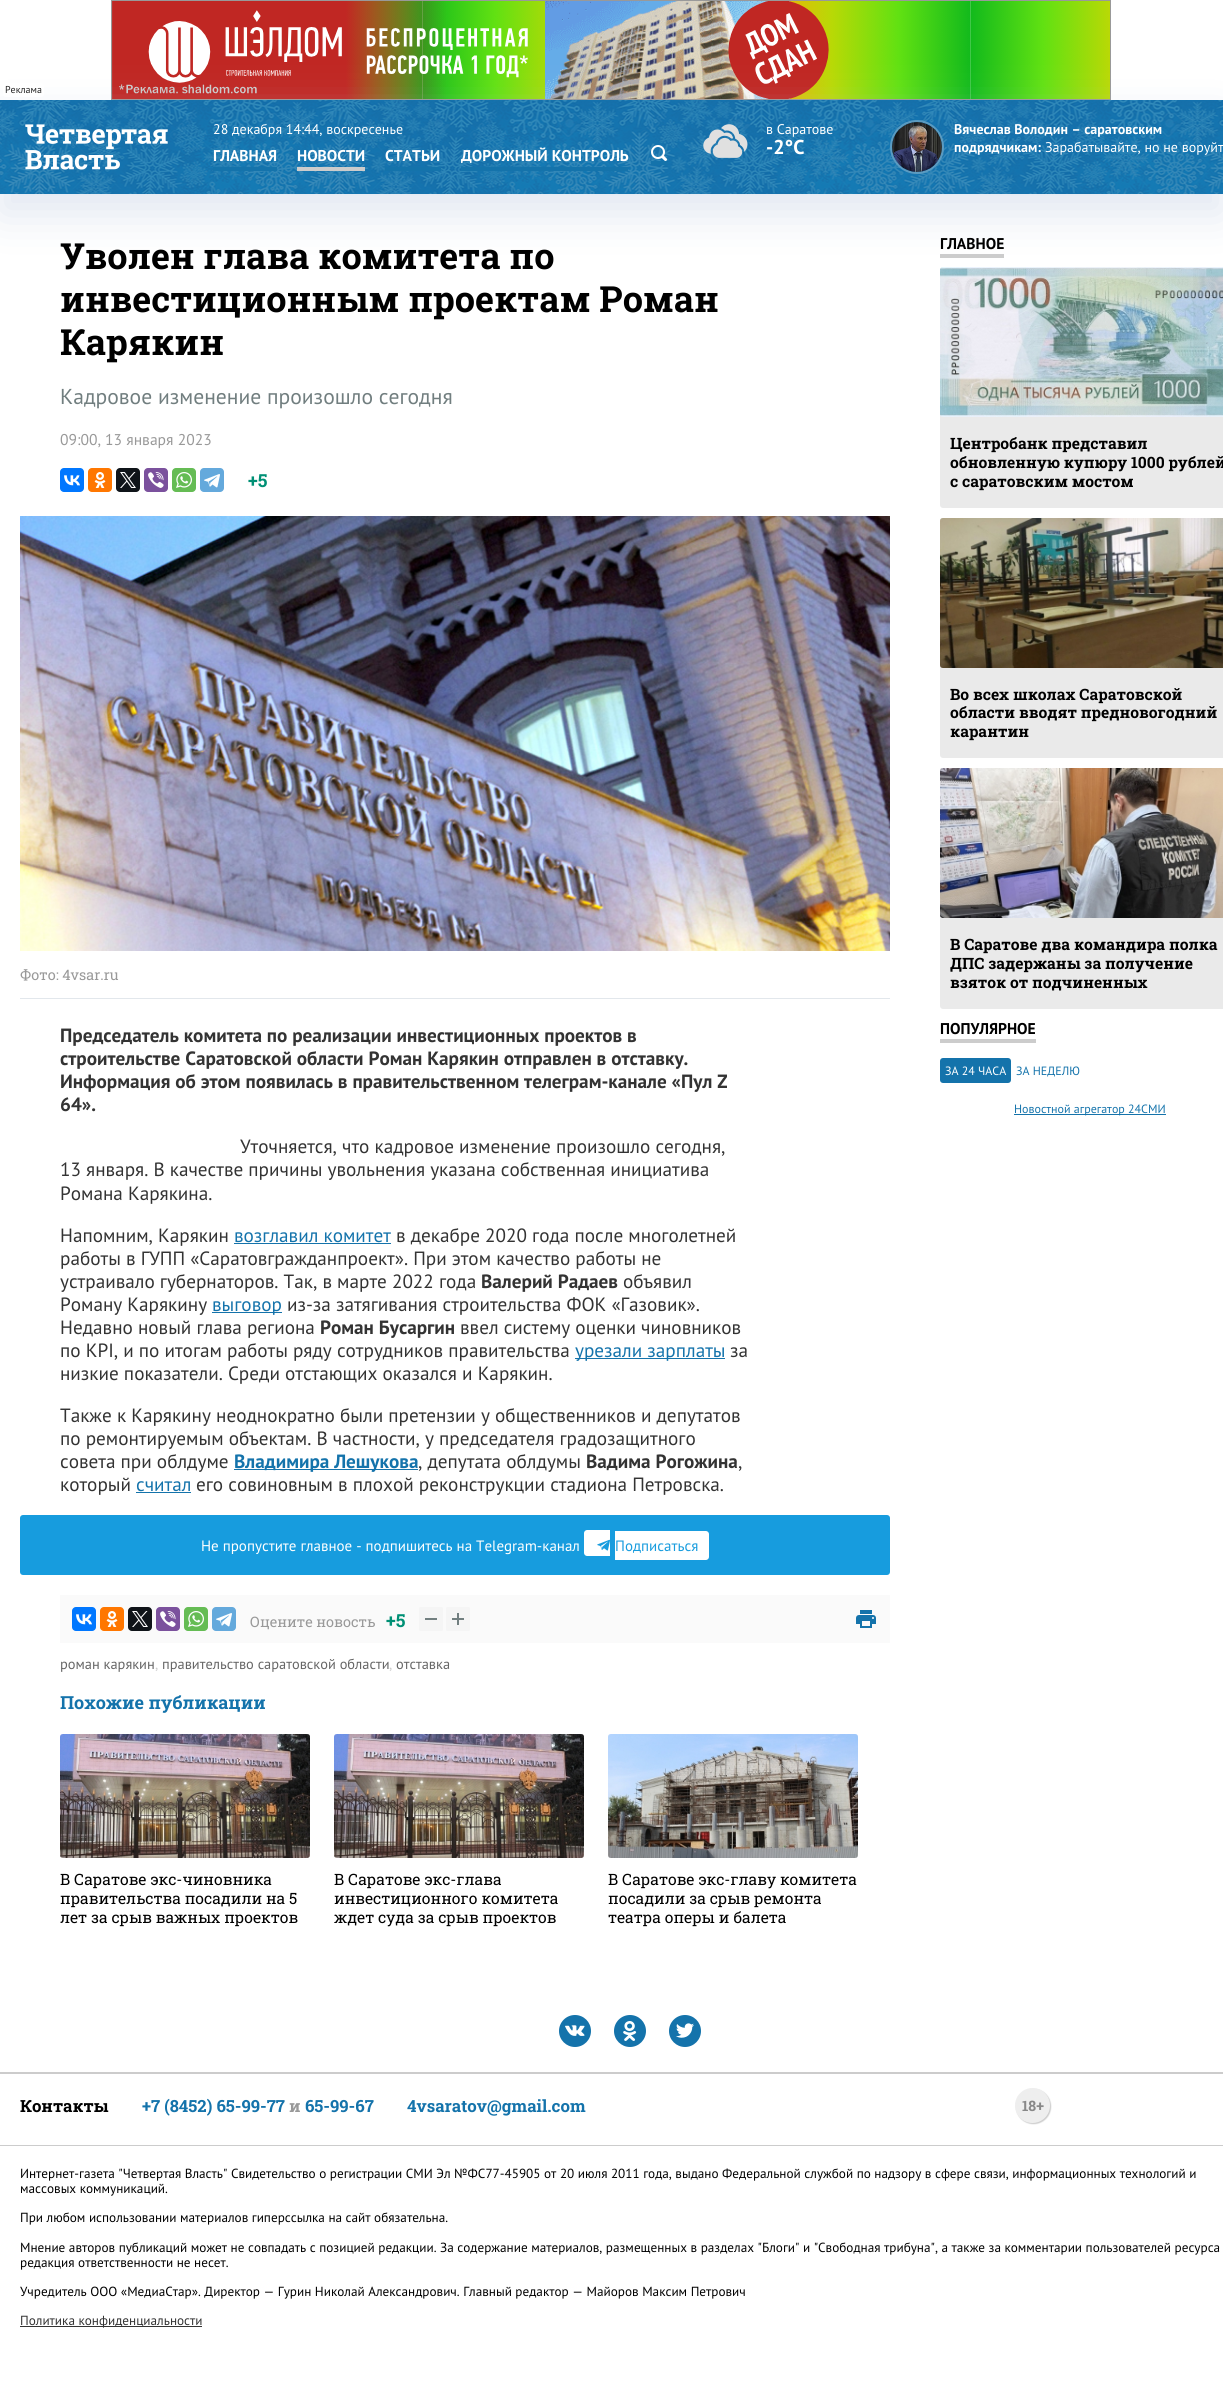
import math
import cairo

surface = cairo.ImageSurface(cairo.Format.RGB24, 1223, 2403)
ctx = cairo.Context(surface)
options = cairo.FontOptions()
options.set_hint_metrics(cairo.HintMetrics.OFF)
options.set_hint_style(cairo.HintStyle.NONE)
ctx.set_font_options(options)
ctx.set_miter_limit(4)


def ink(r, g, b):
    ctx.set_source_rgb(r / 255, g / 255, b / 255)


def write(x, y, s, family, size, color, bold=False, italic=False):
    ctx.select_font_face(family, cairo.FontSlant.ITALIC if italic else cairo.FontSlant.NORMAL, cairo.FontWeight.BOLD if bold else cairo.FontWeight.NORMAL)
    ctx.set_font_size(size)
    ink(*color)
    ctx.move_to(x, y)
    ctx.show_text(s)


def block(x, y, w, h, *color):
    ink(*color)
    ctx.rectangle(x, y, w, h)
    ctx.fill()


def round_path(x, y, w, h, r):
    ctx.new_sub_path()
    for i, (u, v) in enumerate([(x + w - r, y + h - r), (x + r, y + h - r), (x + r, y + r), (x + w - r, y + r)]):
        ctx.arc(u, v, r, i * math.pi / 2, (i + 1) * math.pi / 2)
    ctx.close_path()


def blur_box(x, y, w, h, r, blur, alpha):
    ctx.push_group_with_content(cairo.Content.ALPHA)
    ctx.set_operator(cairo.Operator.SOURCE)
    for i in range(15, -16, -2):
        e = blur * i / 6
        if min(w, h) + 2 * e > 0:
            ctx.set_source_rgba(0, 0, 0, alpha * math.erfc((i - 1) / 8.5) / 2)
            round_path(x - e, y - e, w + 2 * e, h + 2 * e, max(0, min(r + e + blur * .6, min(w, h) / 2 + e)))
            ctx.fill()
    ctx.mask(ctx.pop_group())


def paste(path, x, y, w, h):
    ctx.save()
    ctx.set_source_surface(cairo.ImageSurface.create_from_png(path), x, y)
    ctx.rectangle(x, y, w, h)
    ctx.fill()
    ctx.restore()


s1 = dict(family="PT Sans", size=10, color=(38, 38, 38))
s2 = dict(family="PT Sans", size=14, color=(255, 255, 255))
s3 = dict(family="PT Sans", size=15.6, color=(255, 255, 255), bold=True)
s4 = dict(family="PT Sans", size=20, color=(255, 255, 255), bold=True)
s5 = dict(family="PT Sans", size=14, color=(255, 255, 255), bold=True)
s6 = dict(family="Roboto Slab", size=36, color=(0, 0, 0), bold=True)
s7 = dict(family="PT Sans", size=21.6, color=(113, 126, 127))
s8 = dict(family="PT Sans", size=15.6, color=(153, 153, 153))
s9 = dict(family="Roboto Slab", size=18, color=(0, 144, 117), bold=True)
s10 = dict(family="Roboto Slab", size=14.4, color=(153, 153, 153))
s11 = dict(family="PT Sans", size=19.2, color=(51, 51, 51), bold=True)
s12 = dict(family="PT Sans", size=19.2, color=(51, 51, 51))
s13 = dict(family="PT Sans", size=19.2, color=(20, 115, 171))
s14 = dict(family="PT Sans", size=19.2, color=(20, 115, 171), bold=True)
s15 = dict(family="PT Sans", size=15, color=(255, 255, 255))
s16 = dict(family="PT Sans", size=15, color=(23, 156, 222))
s17 = dict(family="PT Sans", size=14.4, color=(102, 102, 102))
s18 = dict(family="PT Sans", size=14.4, color=(204, 204, 204))
s19 = dict(family="Roboto Slab", size=18, color=(20, 115, 171), bold=True)
s20 = dict(family="Roboto Slab", size=15.6, color=(0, 0, 0))
s21 = dict(family="PT Sans", size=15.6, color=(0, 0, 0), bold=True)
s22 = dict(family="Roboto Slab", size=15.6, color=(0, 0, 0), bold=True)
s23 = dict(family="PT Sans", size=12, color=(255, 255, 255))
s24 = dict(family="PT Sans", size=12, color=(20, 115, 171))
s25 = dict(family="Roboto Slab", size=16.75, color=(0, 0, 0), bold=True)
s26 = dict(family="Roboto Slab", size=16.75, color=(20, 115, 171), bold=True)
s27 = dict(family="Roboto Slab", size=16.75, color=(153, 153, 153), bold=True)
s28 = dict(family="Roboto Slab", size=14.4, color=(136, 136, 136), bold=True)
s29 = dict(family="PT Sans", size=13.2, color=(0, 0, 0))
s30 = dict(family="PT Sans", size=13.2, color=(51, 51, 51))

ink(255, 255, 255)
ctx.paint()
paste("pic1.png", 111, 0, 1000, 100)
block(940, 254, 64, 4, 204, 204, 204)
ink(234, 234, 234)
round_path(940, 267, 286, 241, 3)
ctx.fill()
paste("pic21.png", 940, 267, 283, 150)
ink(196, 208, 227)
blur_box(0, 120, 1223, 94, 0, 22, 0.5)
ctx.set_source_rgba(1, 1, 1, 0.85)
round_path(3, 83, 41, 14, 3)
ctx.fill()
write(5, 93, "Реклама", **s1)
block(0, 100, 1223, 94, 20, 115, 171)
paste("pic2.png", 0, 100, 1223, 94)
paste("pic3.png", 25, 124, 143, 46)
write(213, 134, "28 декабря 14:44, воскресенье", **s2)
block(213, 167, 64, 4, 20, 115, 171)
write(213, 161, "ГЛАВНАЯ", **s3)
block(297, 167, 68, 4, 204, 204, 204)
write(297, 161, "НОВОСТИ", **s3)
block(385, 167, 56, 4, 20, 115, 171)
write(385, 161, "СТАТЬИ", **s3)
block(461, 167, 167, 4, 20, 115, 171)
write(461, 161, "ДОРОЖНЫЙ КОНТРОЛЬ", **s3)
block(651, 161, 16, 4, 20, 115, 171)
paste("pic4.png", 651, 145, 16, 16)
paste("pic5.png", 703, 124, 45, 34)
write(766, 134, "в Саратове", **s2)
write(766, 154, "-2°C", **s4)
ctx.new_path()
ctx.arc(917, 147, 26, 0, 2 * math.pi)
ink(91, 155, 193)
ctx.stroke()
paste("pic6.png", 892, 122, 50, 50)
write(954, 134, "Вячеслав Володин – саратовским", **s5)
write(954, 152, "подрядчикам:", **s5)
write(1045, 152, "Зарабатывайте, но не воруйт", **s2)
write(60, 269, "Уволен глава комитета по", **s6)
write(60, 312, "инвестиционным проектам Роман", **s6)
write(60, 355, "Карякин", **s6)
write(60, 404, "Кадровое изменение произошло сегодня", **s7)
write(60, 445, "09:00, 13 января 2023", **s8)
ink(0, 119, 255)
round_path(60, 468, 24, 24, 4)
ctx.fill()
paste("pic7.png", 64, 475, 16, 11)
ink(255, 119, 0)
round_path(88, 468, 24, 24, 4)
ctx.fill()
paste("pic8.png", 94, 472, 12, 16)
ink(15, 20, 25)
round_path(116, 468, 24, 24, 4)
ctx.fill()
paste("pic9.png", 120, 472, 16, 16)
ink(123, 81, 157)
round_path(144, 468, 24, 24, 4)
ctx.fill()
paste("pic10.png", 148, 472, 16, 16)
ink(101, 188, 84)
round_path(172, 468, 24, 24, 4)
ctx.fill()
paste("pic11.png", 176, 472, 16, 16)
ink(100, 169, 220)
round_path(200, 468, 24, 24, 4)
ctx.fill()
paste("pic12.png", 204, 474, 16, 14)
write(248, 487, "+5", **s9)
paste("pic13.png", 20, 516, 870, 435)
block(20, 998, 870, 1, 226, 231, 236)
write(20, 980, "Фото: 4vsar.ru", **s10)
write(60, 1042, "Председатель комитета по реализации инвестиционных проектов в", **s11)
write(60, 1065, "строительстве Саратовской области Роман Карякин отправлен в отставку.", **s11)
write(60, 1088, "Информация об этом появилась в правительственном телеграм-канале «Пул Z", **s11)
write(60, 1111, "64».", **s11)
write(240, 1153, "Уточняется, что кадровое изменение произошло сегодня,", **s12)
write(60, 1176, "13 января. В качестве причины увольнения указана собственная инициатива", **s12)
write(60, 1200, "Романа Карякина.", **s12)
write(60, 1242, "Напомним, Карякин", **s12)
write(234, 1242, "возглавил комитет", **s13)
block(234, 1243, 157, 1, 20, 115, 171)
write(396, 1242, "в декабре 2020 года после многолетней", **s12)
write(60, 1265, "работы в ГУПП «Саратовгражданпроект». При этом качество работы не", **s12)
write(60, 1288, "устраивало губернаторов. Так, в марте 2022 года", **s12)
write(481, 1288, "Валерий Радаев", **s11)
write(623, 1288, "объявил", **s12)
write(60, 1311, "Роману Карякину", **s12)
block(212, 1312, 70, 1, 20, 115, 171)
write(212, 1311, "выговор", **s13)
write(287, 1311, "из-за затягивания строительства ФОК «Газовик».", **s12)
write(60, 1334, "Недавно новый глава региона", **s12)
write(320, 1334, "Роман Бусаргин", **s11)
write(460, 1334, "ввел систему оценки чиновников", **s12)
write(60, 1357, "по KPI, и по итогам работы ряду сотрудников правительства", **s12)
block(575, 1358, 150, 1, 20, 115, 171)
write(575, 1357, "урезали зарплаты", **s13)
write(730, 1357, "за", **s12)
write(60, 1380, "низкие показатели. Среди отстающих оказался и Карякин.", **s12)
write(60, 1422, "Также к Карякину неоднократно были претензии у общественников и депутатов", **s12)
write(60, 1445, "по ремонтируемым объектам. В частности, у председателя градозащитного", **s12)
write(60, 1468, "совета при облдуме", **s12)
block(234, 1469, 184, 1, 20, 115, 171)
write(234, 1468, "Владимира Лешукова", **s14)
write(418, 1468, ", депутата облдумы", **s12)
write(586, 1468, "Вадима Рогожина", **s11)
write(738, 1468, ",", **s12)
write(60, 1491, "который", **s12)
write(136, 1491, "считал", **s13)
block(136, 1492, 55, 1, 20, 115, 171)
write(196, 1491, "его совиновным в плохой реконструкции стадиона Петровска.", **s12)
ink(23, 156, 222)
round_path(20, 1515, 870, 60, 3)
ctx.fill()
write(201, 1551, "Не пропустите главное - подпишитесь на Telegram-канал", **s15)
ctx.new_path()
ctx.move_to(587, 1530)
ctx.line_to(610, 1530)
ctx.line_to(610, 1556)
ctx.line_to(587, 1556)
ctx.curve_to(585.5, 1556, 584, 1554.5, 584, 1553)
ctx.line_to(584, 1533)
ctx.curve_to(584, 1531.5, 585.5, 1530, 587, 1530)
ctx.close_path()
ctx.fill()
ctx.new_path()
ctx.move_to(615, 1531)
ctx.line_to(706, 1531)
ctx.curve_to(707.5, 1531, 709, 1532.5, 709, 1534)
ctx.line_to(709, 1557)
ctx.curve_to(709, 1558.5, 707.5, 1560, 706, 1560)
ctx.line_to(615, 1560)
ctx.close_path()
ctx.fill()
paste("pic14.png", 597, 1539, 13, 12)
write(615, 1551, "Подписаться", **s16)
block(60, 1595, 830, 48, 250, 250, 250)
ink(0, 119, 255)
round_path(72, 1607, 24, 24, 4)
ctx.fill()
paste("pic7.png", 76, 1614, 16, 11)
ink(255, 119, 0)
round_path(100, 1607, 24, 24, 4)
ctx.fill()
paste("pic8.png", 106, 1611, 12, 16)
ink(15, 20, 25)
round_path(128, 1607, 24, 24, 4)
ctx.fill()
paste("pic9.png", 132, 1611, 16, 16)
ink(123, 81, 157)
round_path(156, 1607, 24, 24, 4)
ctx.fill()
paste("pic10.png", 160, 1611, 16, 16)
ink(101, 188, 84)
round_path(184, 1607, 24, 24, 4)
ctx.fill()
paste("pic11.png", 188, 1611, 16, 16)
ink(100, 169, 220)
round_path(212, 1607, 24, 24, 4)
ctx.fill()
paste("pic12.png", 216, 1613, 16, 14)
write(250, 1627, "Оцените новость", **s10)
write(386, 1627, "+5", **s9)
paste("pic15.png", 419, 1607, 24, 24)
paste("pic16.png", 446, 1607, 24, 24)
paste("pic17.png", 856, 1610, 20, 18)
write(60, 1669, "роман карякин", **s17)
write(155, 1669, ",", **s18)
write(162, 1669, "правительство саратовской области", **s17)
write(389, 1669, ",", **s18)
write(396, 1669, "отставка", **s17)
write(60, 1709, "Похожие публикации", **s19)
paste("pic18.png", 60, 1734, 250, 124)
write(60, 1885, "В Саратове экс-чиновника", **s20)
write(60, 1904, "правительства посадили на 5", **s20)
write(60, 1923, "лет за срыв важных проектов", **s20)
paste("pic19.png", 334, 1734, 250, 124)
write(334, 1885, "В Саратове экс-глава", **s20)
write(334, 1904, "инвестиционного комитета", **s20)
write(334, 1923, "ждет суда за срыв проектов", **s20)
paste("pic20.png", 608, 1734, 250, 124)
write(608, 1885, "В Саратове экс-главу комитета", **s20)
write(608, 1904, "посадили за срыв ремонта", **s20)
write(608, 1923, "театра оперы и балета", **s20)
write(940, 249, "ГЛАВНОЕ", **s21)
write(950, 449, "Центробанк представил", **s22)
write(950, 468, "обновленную купюру 1000 рублей", **s22)
write(950, 487, "с саратовским мостом", **s22)
ink(234, 234, 234)
round_path(940, 518, 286, 240, 3)
ctx.fill()
paste("pic22.png", 940, 518, 283, 150)
write(950, 700, "Во всех школах Саратовской", **s22)
write(950, 718, "области вводят предновогодний", **s22)
write(950, 737, "карантин", **s22)
ink(234, 234, 234)
round_path(940, 768, 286, 241, 3)
ctx.fill()
paste("pic23.png", 940, 768, 283, 150)
write(950, 950, "В Саратове два командира полка", **s22)
write(950, 969, "ДПС задержаны за получение", **s22)
write(950, 988, "взяток от подчиненных", **s22)
write(940, 1034, "ПОПУЛЯРНОЕ", **s21)
block(940, 1039, 96, 4, 204, 204, 204)
ink(20, 115, 171)
round_path(940, 1058, 71, 25, 3)
ctx.fill()
write(945, 1075, "ЗА 24 ЧАСА", **s23)
write(1016, 1075, "ЗА НЕДЕЛЮ", **s24)
block(1014, 1114, 152, 1, 20, 115, 171)
write(1014, 1113, "Новостной агрегатор 24СМИ", **s24)
ctx.new_path()
ctx.arc(575, 2031, 16, 0, 2 * math.pi)
ctx.fill()
paste("pic24.png", 565, 2025, 20, 11)
ctx.arc(630, 2031, 16, 0, 2 * math.pi)
ctx.fill()
paste("pic25.png", 623, 2021, 14, 20)
ctx.arc(685, 2031, 16, 0, 2 * math.pi)
ctx.fill()
paste("pic26.png", 676, 2023, 18, 15)
block(0, 2072, 1223, 2, 204, 204, 204)
write(20, 2112, "Контакты", **s25)
write(142, 2112, "+7 (8452) 65-99-77", **s26)
write(289, 2112, "и", **s27)
write(305, 2112, "65-99-67", **s26)
write(407, 2112, "4vsaratov@gmail.com", **s26)
ink(204, 204, 204)
blur_box(1016, 2089, 35, 35, 17.5, 0.5, 1)
ink(238, 238, 238)
ctx.arc(1032.5, 2105.5, 17.5, 0, 2 * math.pi)
ctx.fill()
write(1022, 2111, "18+", **s28)
block(0, 2145, 1223, 1, 204, 204, 204)
write(20, 2178, "Интернет-газета \"Четвертая Власть\" Cвидетельство о регистрации СМИ Эл №ФС77-45905 от 20 июля 2011 года, выдано Федеральной службой по надзору в сфере связи, информационных технологий и", **s29)
write(20, 2193, "массовых коммуникаций.", **s29)
write(20, 2222, "При любом использовании материалов гиперссылка на сайт обязательна.", **s29)
write(20, 2252, "Мнение авторов публикаций может не совпадать с позицией редакции. За содержание материалов, размещенных в разделах \"Блоги\" и \"Свободная трибуна\", а также за комментарии пользователей ресурса", **s29)
write(20, 2267, "редакция ответственности не несет.", **s29)
write(20, 2296, "Учредитель ООО «МедиаСтар». Директор — Гурин Николай Александрович. Главный редактор — Майоров Максим Петрович", **s29)
block(20, 2326, 182, 1, 51, 51, 51)
write(20, 2325, "Политика конфиденциальности", **s30)
surface.write_to_png("screenshot.png")
